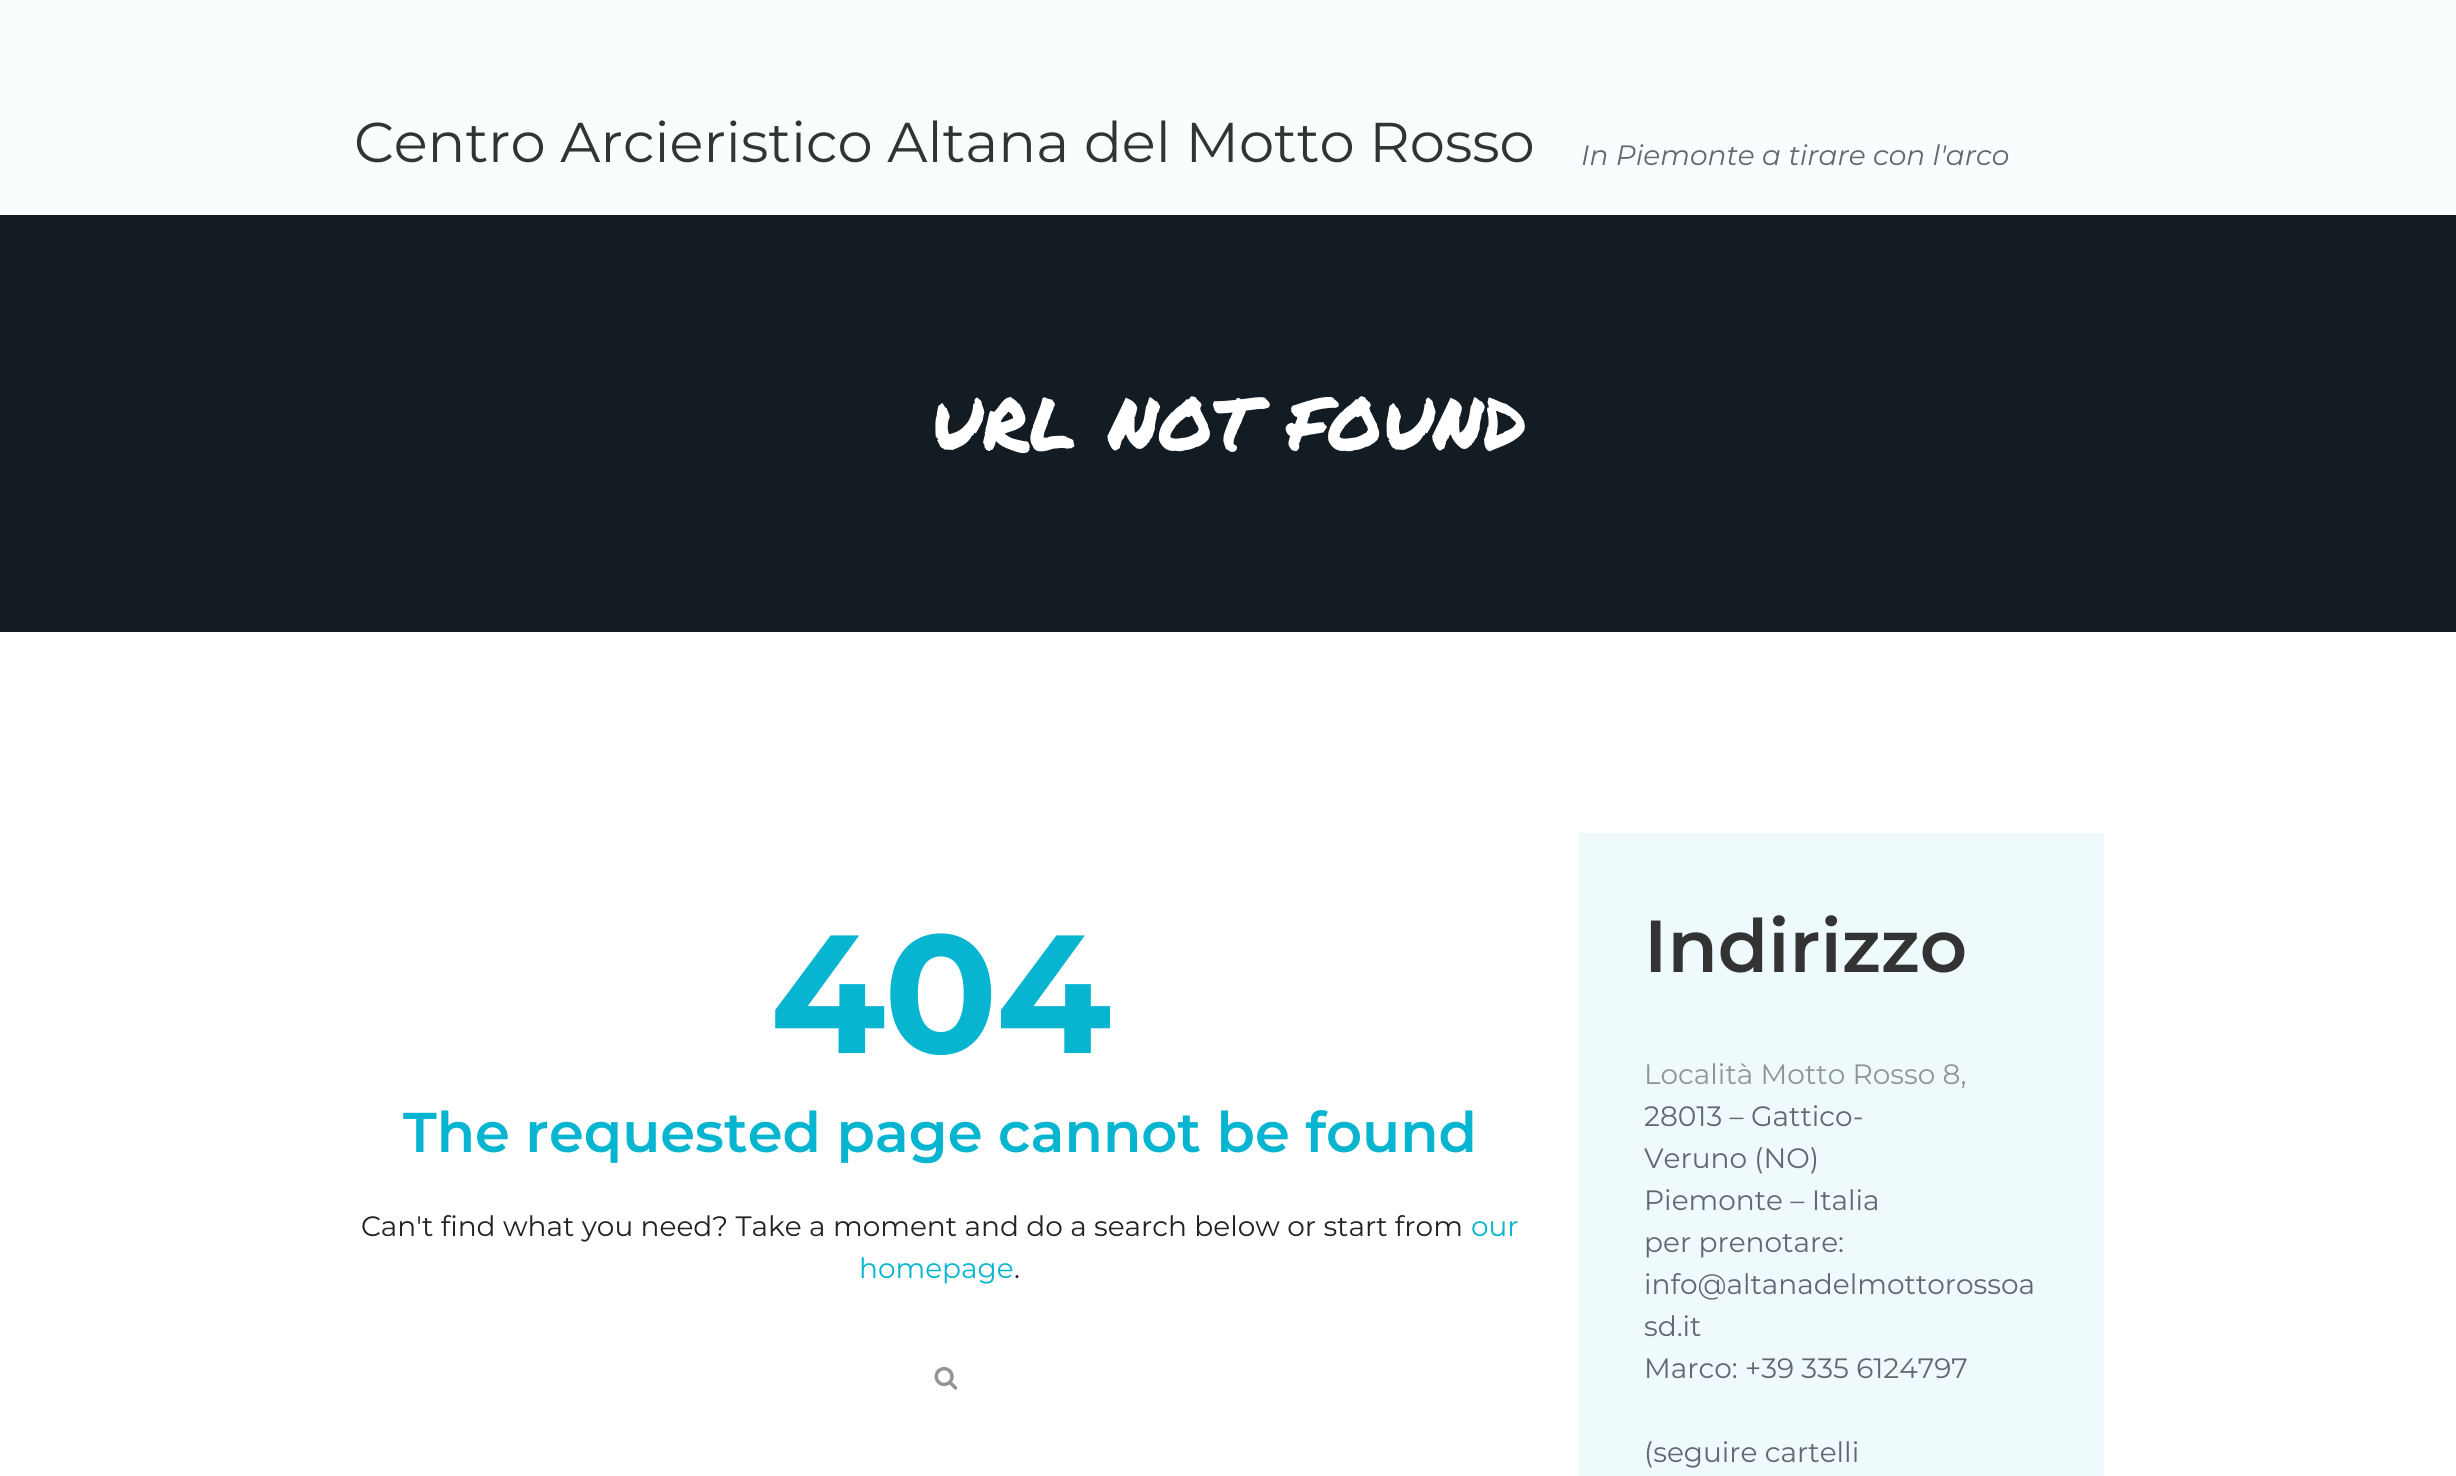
import math
import cairo

surface = cairo.ImageSurface(cairo.Format.RGB24, 2456, 1476)
ctx = cairo.Context(surface)
options = cairo.FontOptions()
options.set_hint_metrics(cairo.HintMetrics.OFF)
options.set_hint_style(cairo.HintStyle.NONE)
ctx.set_font_options(options)
ctx.set_miter_limit(4)


def ink(r, g, b):
    ctx.set_source_rgb(r / 255, g / 255, b / 255)


def write(x, y, s, family, size, color, bold=False, italic=False):
    ctx.select_font_face(family, cairo.FontSlant.ITALIC if italic else cairo.FontSlant.NORMAL, cairo.FontWeight.BOLD if bold else cairo.FontWeight.NORMAL)
    ctx.set_font_size(size)
    ink(*color)
    ctx.move_to(x, y)
    ctx.show_text(s)


def write_spaced(x, y, s, letter, word):
    ctx.move_to(x, y)
    for ch in s:
        ctx.show_text(ch)
        ctx.rel_move_to(letter + word * (ch == ' '), 0)


def block(x, y, w, h, *color):
    ink(*color)
    ctx.rectangle(x, y, w, h)
    ctx.fill()


def paste(path, x, y, w, h):
    ctx.save()
    ctx.set_source_surface(cairo.ImageSurface.create_from_png(path), x, y)
    ctx.rectangle(x, y, w, h)
    ctx.fill()
    ctx.restore()


s1 = dict(family="Montserrat", size=56, color=(51, 51, 51))
s2 = dict(family="Montserrat", size=28, color=(101, 101, 115), italic=True)
s3 = dict(family="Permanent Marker", size=87.5, color=(255, 255, 255))
s4 = dict(family="Montserrat SemiBold", size=56, color=(7, 181, 208))
s5 = dict(family="Montserrat", size=28, color=(34, 34, 34))
s6 = dict(family="Montserrat", size=28, color=(7, 181, 208))
s7 = dict(family="Montserrat SemiBold", size=73.5, color=(51, 51, 51))
s8 = dict(family="Montserrat", size=28, color=(146, 148, 150))
s9 = dict(family="Montserrat", size=28, color=(101, 101, 115))

ink(255, 255, 255)
ctx.paint()
block(0, 0, 2456, 215, 248, 253, 254)
write(354, 162, "Centro Arcieristico Altana del Motto Rosso", **s1)
write(1581, 165, "In Piemonte a tirare con l'arco", **s2)
block(0, 215, 2456, 417, 19, 28, 35)
write(931, 450, "url not found", **s3)
ctx.select_font_face("Montserrat", cairo.FontSlant.NORMAL, cairo.FontWeight.BOLD)
ctx.set_font_size(168)
ink(7, 181, 208)
write_spaced(770, 1053, "404", -2, 0)
write(403, 1152, "The requested page cannot be found", **s4)
write(361, 1236, "Can't find what you need? Take a moment and do a search below or start from", **s5)
write(1471, 1236, "our", **s6)
write(859, 1278, "homepage", **s6)
write(1014, 1278, ".", **s5)
paste("pic1.png", 934, 1366, 24, 24)
block(1579, 833, 525, 643, 238, 250, 252)
write(1644, 972, "Indirizzo", **s7)
write(1644, 1084, "Località Motto Rosso 8,", **s8)
write(1644, 1126, "28013 – Gattico-", **s9)
write(1644, 1168, "Veruno (NO)", **s9)
write(1644, 1210, "Piemonte – Italia", **s9)
write(1644, 1252, "per prenotare:", **s9)
write(1644, 1294, "info@altanadelmottorossoa", **s9)
write(1644, 1336, "sd.it", **s9)
write(1644, 1378, "Marco: +39 335 6124797", **s9)
write(1644, 1462, "(seguire cartelli", **s9)
surface.write_to_png("screenshot.png")
